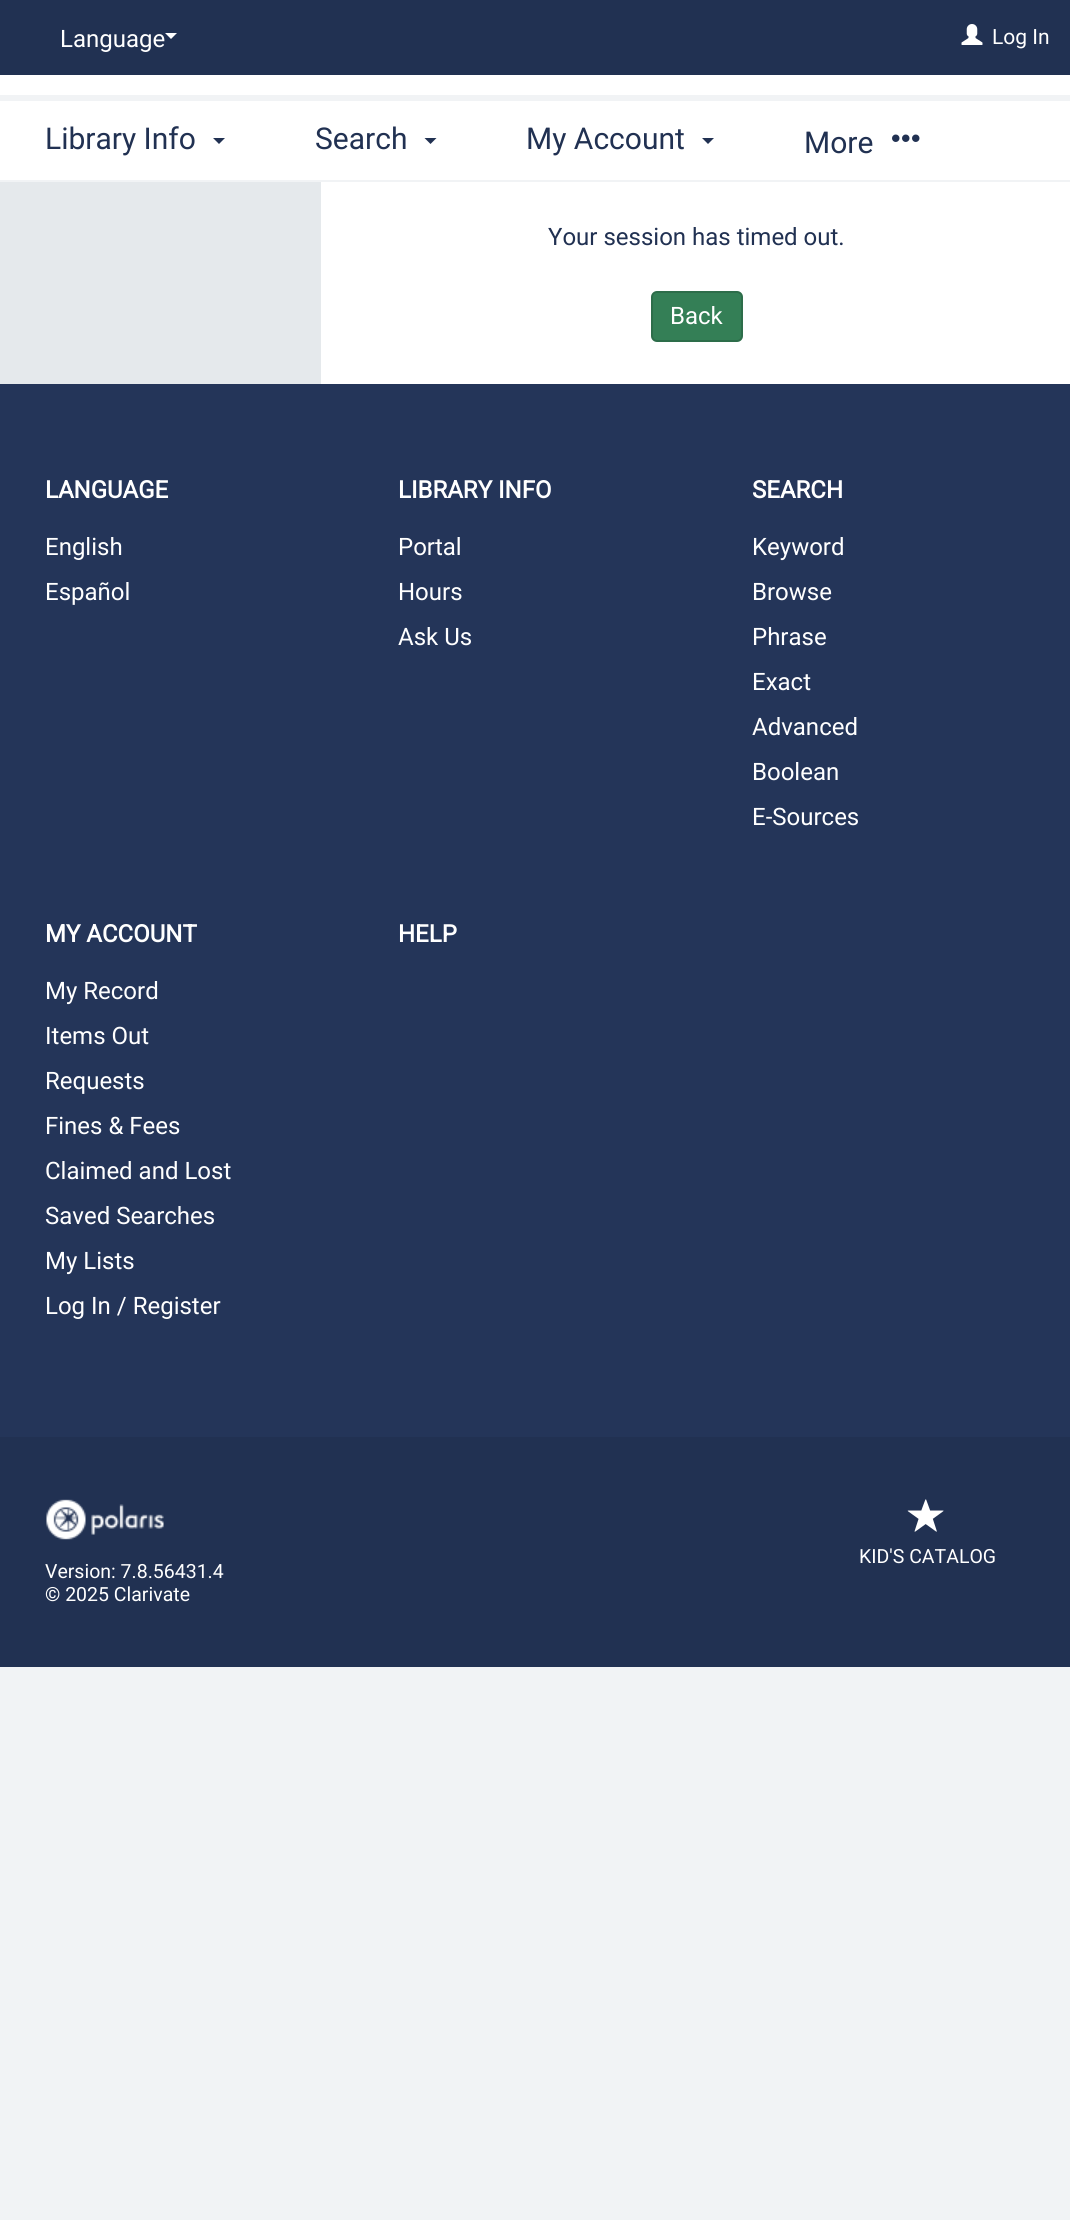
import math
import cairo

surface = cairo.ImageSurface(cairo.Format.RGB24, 1070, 2220)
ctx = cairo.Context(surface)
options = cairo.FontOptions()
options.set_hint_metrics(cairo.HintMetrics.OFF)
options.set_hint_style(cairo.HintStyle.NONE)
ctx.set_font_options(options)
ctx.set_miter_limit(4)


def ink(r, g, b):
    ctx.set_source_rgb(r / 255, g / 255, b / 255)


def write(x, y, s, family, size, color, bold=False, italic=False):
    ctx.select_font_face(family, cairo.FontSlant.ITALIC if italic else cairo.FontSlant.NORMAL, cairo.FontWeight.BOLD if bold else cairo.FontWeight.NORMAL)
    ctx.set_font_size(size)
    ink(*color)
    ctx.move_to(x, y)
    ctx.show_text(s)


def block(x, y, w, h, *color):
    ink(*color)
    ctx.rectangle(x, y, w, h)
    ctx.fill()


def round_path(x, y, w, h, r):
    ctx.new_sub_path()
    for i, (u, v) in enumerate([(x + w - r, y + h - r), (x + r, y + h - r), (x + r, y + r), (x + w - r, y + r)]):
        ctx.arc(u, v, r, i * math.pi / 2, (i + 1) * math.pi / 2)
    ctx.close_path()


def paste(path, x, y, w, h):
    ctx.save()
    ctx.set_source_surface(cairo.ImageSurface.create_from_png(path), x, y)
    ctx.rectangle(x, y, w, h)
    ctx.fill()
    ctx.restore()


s1 = dict(family="Roboto", size=24, color=(255, 255, 255))
s2 = dict(family="Roboto", size=30, color=(33, 49, 82))
s3 = dict(family="Roboto", size=21, color=(255, 255, 255))
s4 = dict(family="Roboto", size=24, color=(33, 49, 82))
s5 = dict(family="Roboto", size=24, color=(255, 255, 255), bold=True)
s6 = dict(family="Roboto", size=19.5, color=(255, 255, 255))

ink(241, 243, 245)
ctx.paint()
block(0, 0, 1070, 75, 33, 49, 82)
write(60, 47, "Language", **s1)
ctx.new_path()
ctx.move_to(165, 33)
ctx.line_to(177, 33)
ctx.line_to(171, 39)
ctx.close_path()
ctx.fill()
block(0, 101, 1070, 79, 255, 255, 255)
write(45, 149, "Library Info", **s2)
ctx.new_path()
ctx.move_to(213, 138)
ctx.line_to(225, 138)
ctx.line_to(219, 144)
ctx.close_path()
ctx.fill()
write(315, 149, "Search", **s2)
ctx.new_path()
ctx.move_to(424.5, 138)
ctx.line_to(436.5, 138)
ctx.line_to(430.5, 144)
ctx.close_path()
ctx.fill()
write(526, 149, "My Account", **s2)
ctx.new_path()
ctx.move_to(702, 138)
ctx.line_to(714, 138)
ctx.line_to(708, 144)
ctx.close_path()
ctx.fill()
write(804, 153, "More", **s2)
paste("pic1.png", 892, 134, 28, 8)
paste("pic2.png", 961, 24, 22, 21)
write(992, 44, "Log In", **s3)
block(0, 75, 1070, 20, 255, 255, 255)
block(0, 182, 321, 202, 229, 233, 236)
block(321, 182, 749, 202, 255, 255, 255)
write(548, 245, "Your session has timed out.", **s4)
ink(52, 127, 86)
round_path(652, 292, 90, 49, 5)
ctx.fill_preserve()
ink(45, 109, 74)
ctx.stroke()
write(670, 324, "Back", **s1)
block(0, 384, 1070, 1053, 36, 53, 89)
write(45, 498, "LANGUAGE", **s5)
write(45, 555, "English", **s1)
write(45, 600, "Español", **s1)
write(398, 498, "LIBRARY INFO", **s5)
write(398, 555, "Portal", **s1)
write(398, 600, "Hours", **s1)
write(398, 645, "Ask Us", **s1)
write(752, 498, "SEARCH", **s5)
write(752, 555, "Keyword", **s1)
write(752, 600, "Browse", **s1)
write(752, 645, "Phrase", **s1)
write(752, 690, "Exact", **s1)
write(752, 735, "Advanced", **s1)
write(752, 780, "Boolean", **s1)
write(752, 825, "E-Sources", **s1)
write(45, 942, "MY ACCOUNT", **s5)
write(45, 999, "My Record", **s1)
write(45, 1044, "Items Out", **s1)
write(45, 1089, "Requests", **s1)
write(45, 1134, "Fines & Fees", **s1)
write(45, 1179, "Claimed and Lost", **s1)
write(45, 1224, "Saved Searches", **s1)
write(45, 1269, "My Lists", **s1)
write(45, 1314, "Log In / Register", **s1)
write(398, 942, "HELP", **s5)
block(0, 1437, 1070, 230, 33, 49, 82)
paste("pic3.png", 907, 1499, 37, 33)
write(859, 1563, "KID'S CATALOG", **s6)
paste("pic4.png", 46, 1499, 118, 41)
write(45, 1578, "Version: 7.8.56431.4", **s6)
write(45, 1601, "© 2025 Clarivate", **s6)
surface.write_to_png("screenshot.png")
